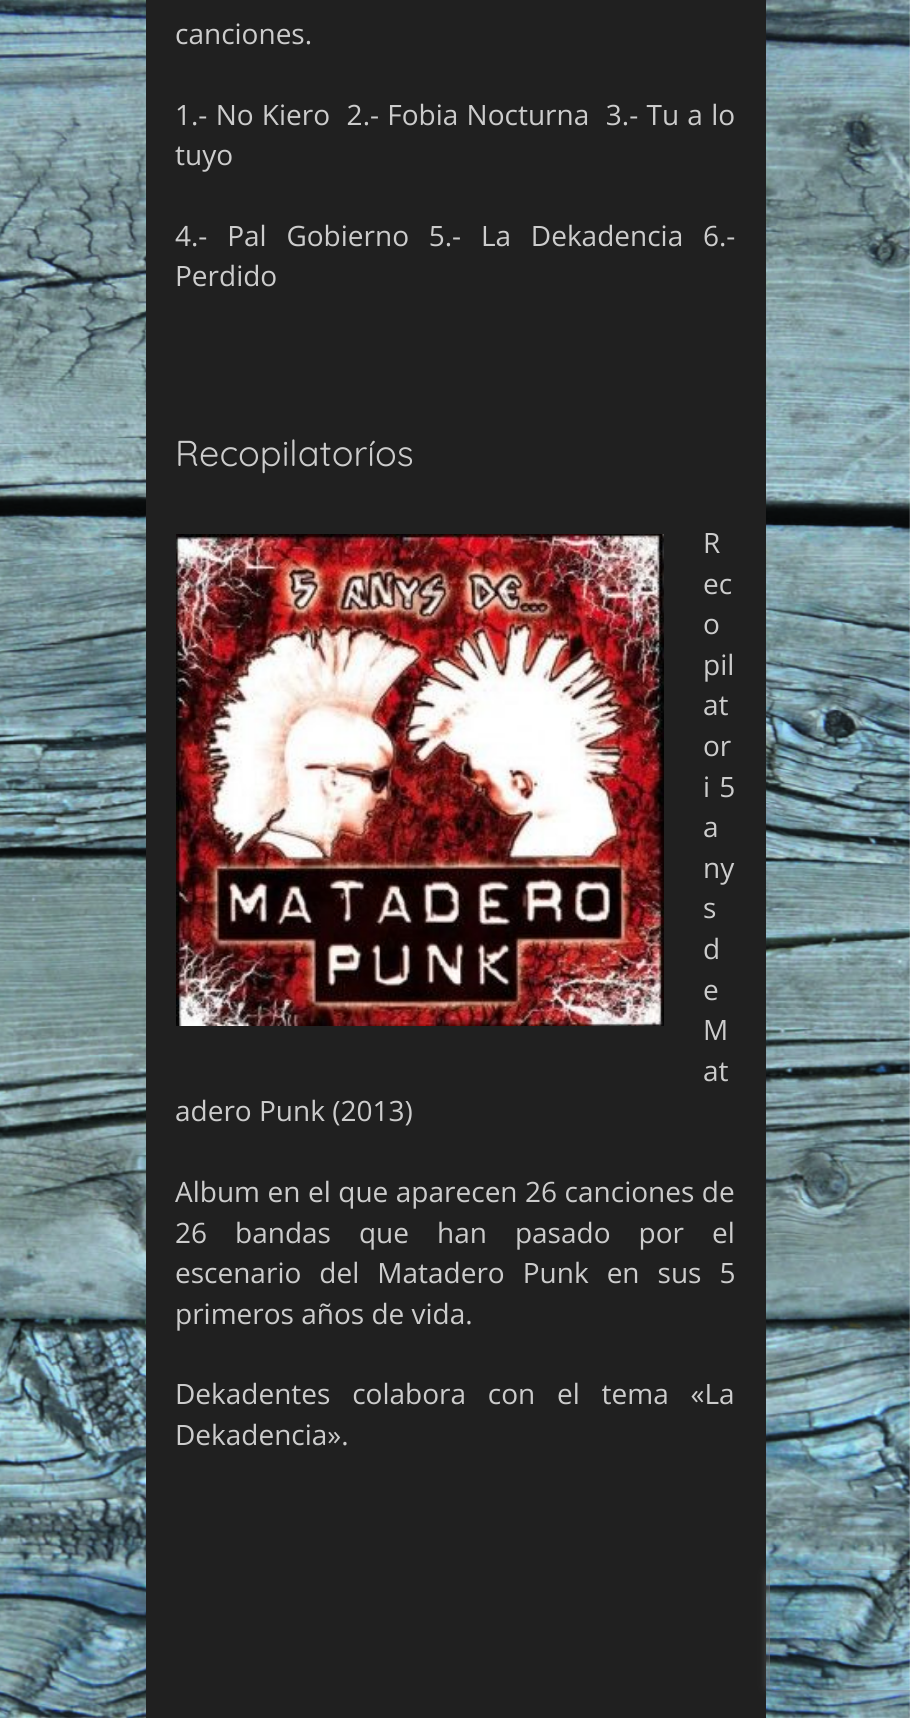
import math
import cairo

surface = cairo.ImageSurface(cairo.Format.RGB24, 910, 1718)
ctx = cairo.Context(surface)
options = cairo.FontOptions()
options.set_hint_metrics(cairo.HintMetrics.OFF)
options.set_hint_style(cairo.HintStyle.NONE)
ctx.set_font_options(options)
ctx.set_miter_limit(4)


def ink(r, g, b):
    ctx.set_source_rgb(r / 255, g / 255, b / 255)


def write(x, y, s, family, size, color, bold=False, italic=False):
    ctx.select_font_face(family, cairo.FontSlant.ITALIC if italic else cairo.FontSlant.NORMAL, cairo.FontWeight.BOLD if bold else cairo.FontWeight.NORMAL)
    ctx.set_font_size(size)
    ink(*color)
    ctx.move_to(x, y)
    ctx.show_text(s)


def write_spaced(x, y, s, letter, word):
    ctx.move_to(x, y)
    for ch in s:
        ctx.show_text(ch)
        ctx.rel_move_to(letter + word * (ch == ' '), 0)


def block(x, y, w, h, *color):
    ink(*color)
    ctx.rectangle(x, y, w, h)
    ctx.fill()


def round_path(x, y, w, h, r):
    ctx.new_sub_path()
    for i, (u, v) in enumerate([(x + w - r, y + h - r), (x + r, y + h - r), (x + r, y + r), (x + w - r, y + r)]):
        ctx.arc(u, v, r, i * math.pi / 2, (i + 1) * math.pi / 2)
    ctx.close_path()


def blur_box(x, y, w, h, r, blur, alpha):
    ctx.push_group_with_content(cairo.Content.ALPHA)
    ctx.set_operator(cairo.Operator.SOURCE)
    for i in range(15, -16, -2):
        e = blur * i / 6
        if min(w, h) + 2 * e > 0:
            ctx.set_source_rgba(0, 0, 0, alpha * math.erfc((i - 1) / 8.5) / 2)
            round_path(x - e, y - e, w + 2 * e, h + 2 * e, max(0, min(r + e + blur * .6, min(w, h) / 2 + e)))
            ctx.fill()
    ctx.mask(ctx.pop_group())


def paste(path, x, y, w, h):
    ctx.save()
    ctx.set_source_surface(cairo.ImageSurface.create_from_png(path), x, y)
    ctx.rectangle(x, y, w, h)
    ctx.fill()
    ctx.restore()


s1 = dict(family="Open Sans", size=28, color=(204, 204, 204))
s2 = dict(family="Quicksand", size=36, color=(204, 204, 204))

ink(255, 255, 255)
ctx.paint()
paste("pic1.png", 0, 0, 910, 1718)
block(146, 0, 620, 1718, 32, 32, 32)
write(175, 44, "canciones.", **s1)
write_spaced(175, 125, "1.- No Kiero  2.- Fobia Nocturna  3.- Tu a lo", 0, 1)
write(175, 165, "tuyo", **s1)
write_spaced(175, 246, "4.- Pal Gobierno 5.- La Dekadencia 6.-", 0, 12.5)
write(175, 286, "Perdido", **s1)
write(175, 466, "Recopilatoríos", **s2)
write(703, 553, "R", **s1)
write(703, 594, "ec", **s1)
write(703, 634, "o", **s1)
write(703, 675, "pil", **s1)
write(703, 715, "at", **s1)
write(703, 756, "or", **s1)
write_spaced(703, 797, "i 5", 0, 2)
write(703, 837, "a", **s1)
write(703, 878, "ny", **s1)
write(703, 918, "s", **s1)
write(703, 959, "d", **s1)
write(703, 1000, "e", **s1)
write(703, 1040, "M", **s1)
write(703, 1081, "at", **s1)
write(175, 1121, "adero Punk (2013)", **s1)
paste("pic2.png", 176, 534, 488, 492)
write_spaced(175, 1202, "Album en el que aparecen 26 canciones de", 0, 0.25)
write_spaced(175, 1243, "26 bandas que han pasado por el", 0, 20.75)
write_spaced(175, 1283, "escenario del Matadero Punk en sus 5", 0, 10.75)
write(175, 1324, "primeros años de vida.", **s1)
write_spaced(175, 1404, "Dekadentes colabora con el tema «La", 0, 14.5)
write(175, 1445, "Dekadencia».", **s1)
ctx.save()
ctx.set_fill_rule(cairo.FillRule.EVEN_ODD)
ctx.new_path()
ctx.move_to(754, 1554)
ctx.line_to(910, 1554)
ctx.line_to(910, 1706)
ctx.line_to(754, 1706)
ctx.close_path()
ctx.move_to(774, 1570)
ctx.line_to(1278, 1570)
ctx.curve_to(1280, 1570, 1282, 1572, 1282, 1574)
ctx.line_to(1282, 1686)
ctx.curve_to(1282, 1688, 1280, 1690, 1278, 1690)
ctx.line_to(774, 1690)
ctx.curve_to(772, 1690, 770, 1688, 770, 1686)
ctx.line_to(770, 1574)
ctx.curve_to(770, 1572, 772, 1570, 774, 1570)
ctx.close_path()
ctx.clip()
ink(128, 128, 128)
blur_box(770, 1570, 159, 120, 4, 5, 1)
ctx.restore()
surface.write_to_png("screenshot.png")
